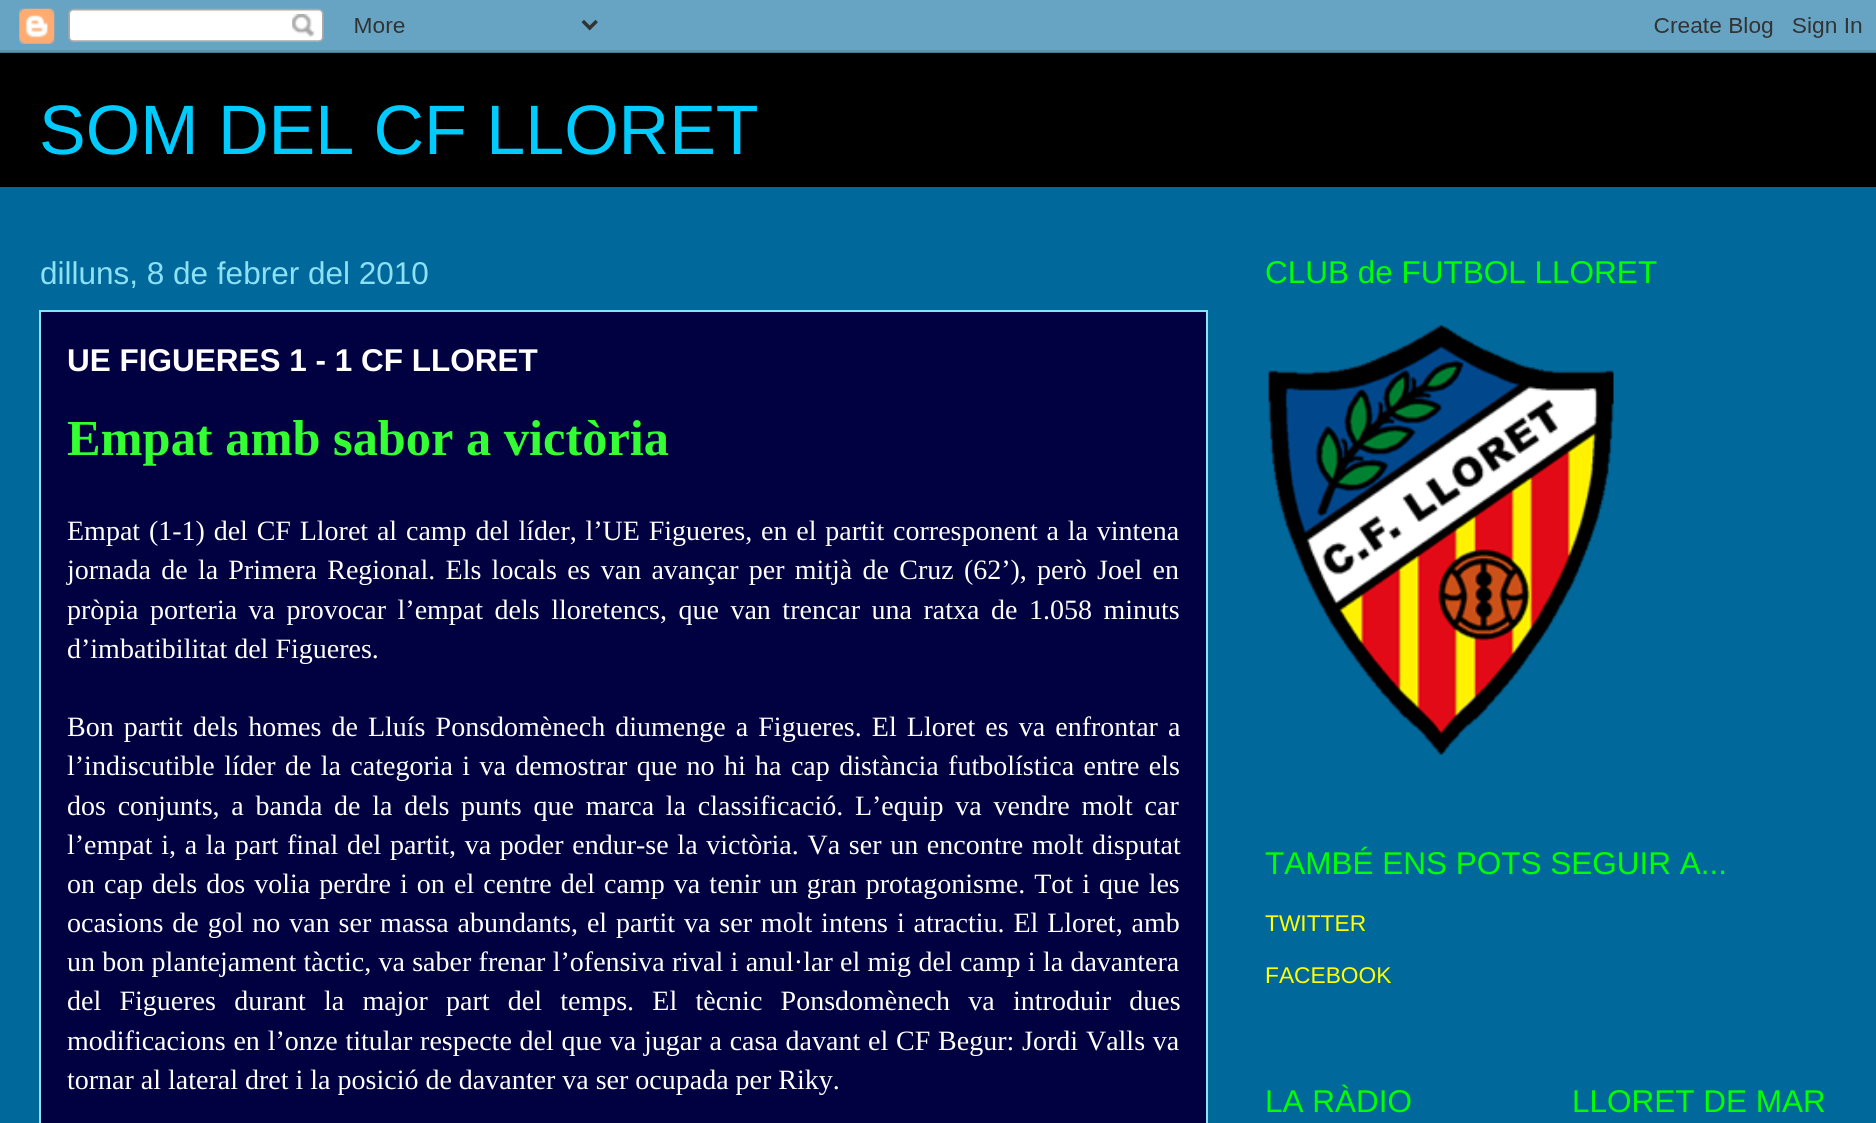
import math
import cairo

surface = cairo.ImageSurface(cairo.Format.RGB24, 1876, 1123)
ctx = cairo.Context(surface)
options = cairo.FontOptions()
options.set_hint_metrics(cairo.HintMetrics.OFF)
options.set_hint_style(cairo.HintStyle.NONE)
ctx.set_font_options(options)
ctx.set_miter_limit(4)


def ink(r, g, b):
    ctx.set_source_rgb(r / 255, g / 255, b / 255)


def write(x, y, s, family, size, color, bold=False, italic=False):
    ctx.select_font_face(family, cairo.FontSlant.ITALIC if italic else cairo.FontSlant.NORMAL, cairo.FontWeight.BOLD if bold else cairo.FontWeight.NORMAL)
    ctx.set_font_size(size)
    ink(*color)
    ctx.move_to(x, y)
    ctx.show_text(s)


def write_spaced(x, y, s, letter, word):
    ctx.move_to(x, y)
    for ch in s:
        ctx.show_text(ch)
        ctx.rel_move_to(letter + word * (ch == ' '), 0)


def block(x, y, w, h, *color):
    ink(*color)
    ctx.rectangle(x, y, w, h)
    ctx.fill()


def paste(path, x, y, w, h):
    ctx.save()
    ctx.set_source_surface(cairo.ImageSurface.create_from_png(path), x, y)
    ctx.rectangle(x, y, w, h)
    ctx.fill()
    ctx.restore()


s1 = dict(family="Liberation Sans", size=70, color=(0, 203, 255))
s2 = dict(family="Liberation Sans", size=31.5, color=(140, 225, 245))
s3 = dict(family="Liberation Sans", size=31.5, color=(255, 255, 255), bold=True)
s4 = dict(family="Liberation Serif", size=50.4, color=(51, 255, 51), bold=True)
s5 = dict(family="Liberation Serif", size=28, color=(255, 255, 255))
s6 = dict(family="Liberation Sans", size=31.5, color=(0, 255, 0))
s7 = dict(family="Liberation Sans", size=22.75, color=(255, 255, 0))

ink(1, 104, 156)
ctx.paint()
paste("pic1.png", 0, 0, 1876, 53)
block(0, 53, 1876, 134, 0, 0, 0)
write(39, 154, "SOM DEL CF LLORET", **s1)
ink(1, 1, 65)
ctx.rectangle(40, 311, 1167, 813)
ctx.fill_preserve()
ink(140, 225, 245)
ctx.stroke()
write(40, 284, "dilluns, 8 de febrer del 2010", **s2)
write(67, 371, "UE FIGUERES 1 - 1 CF LLORET", **s3)
write(67, 455, "Empat amb sabor a victòria", **s4)
ctx.select_font_face("Liberation Serif")
ctx.set_font_size(28)
ink(255, 255, 255)
write_spaced(67, 540, "Empat (1-1) del CF Lloret al camp del líder, l’UE Figueres, en el partit corresponent a la vintena", 0, 1.8)
write_spaced(67, 579, "jornada de la Primera Regional. Els locals es van avançar per mitjà de Cruz (62’), però Joel en", 0, 3.25)
write_spaced(67, 619, "pròpia porteria va provocar l’empat dels lloretencs, que van trencar una ratxa de 1.058 minuts", 0, 4.5)
write(67, 658, "d’imbatibilitat del Figueres.", **s5)
write_spaced(67, 736, "Bon partit dels homes de Lluís Ponsdomènech diumenge a Figueres. El Lloret es va enfrontar a", 0, 3.1)
write_spaced(67, 775, "l’indiscutible líder de la categoria i va demostrar que no hi ha cap distància futbolística entre els", 0, 2.4)
write_spaced(67, 815, "dos conjunts, a banda de la dels punts que marca la classificació. L’equip va vendre molt car", 0, 4.75)
write_spaced(67, 854, "l’empat i, a la part final del partit, va poder endur-se la victòria. Va ser un encontre molt disputat", 0, 1.7)
write_spaced(67, 893, "on cap dels dos volia perdre i on el centre del camp va tenir un gran protagonisme. Tot i que les", 0, 2.1)
write_spaced(67, 932, "ocasions de gol no van ser massa abundants, el partit va ser molt intens i atractiu. El Lloret, amb", 0, 1.9)
write_spaced(67, 971, "un bon plantejament tàctic, va saber frenar l’ofensiva rival i anul·lar el mig del camp i la davantera", 0, 0.3)
write_spaced(67, 1010, "del Figueres durant la major part del temps. El tècnic Ponsdomènech va introduir dues", 0, 11.25)
write_spaced(67, 1050, "modificacions en l’onze titular respecte del que va jugar a casa davant el CF Begur: Jordi Valls va", 0, 0.8)
write(67, 1089, "tornar al lateral dret i la posició de davanter va ser ocupada per Riky.", **s5)
write(1265, 283, "CLUB de FUTBOL LLORET", **s6)
paste("pic2.png", 1268, 325, 346, 430)
write(1265, 874, "TAMBÉ ENS POTS SEGUIR A...", **s6)
write(1265, 931, "TWITTER", **s7)
write(1265, 983, "FACEBOOK", **s7)
write(1265, 1112, "LA RÀDIO", **s6)
write(1572, 1112, "LLORET DE MAR", **s6)
surface.write_to_png("screenshot.png")
